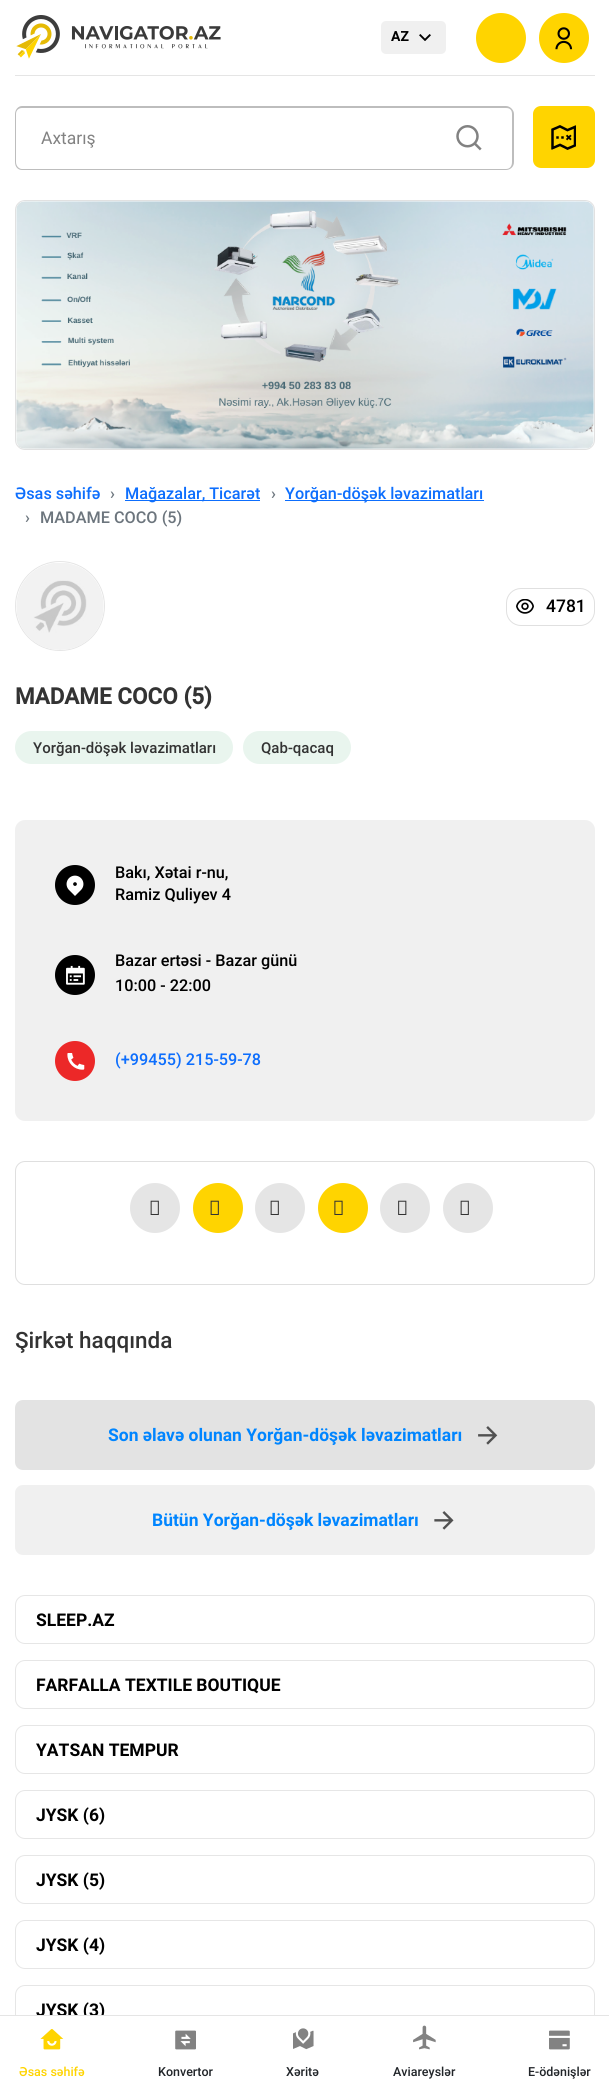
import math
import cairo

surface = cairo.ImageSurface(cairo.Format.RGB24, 609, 2089)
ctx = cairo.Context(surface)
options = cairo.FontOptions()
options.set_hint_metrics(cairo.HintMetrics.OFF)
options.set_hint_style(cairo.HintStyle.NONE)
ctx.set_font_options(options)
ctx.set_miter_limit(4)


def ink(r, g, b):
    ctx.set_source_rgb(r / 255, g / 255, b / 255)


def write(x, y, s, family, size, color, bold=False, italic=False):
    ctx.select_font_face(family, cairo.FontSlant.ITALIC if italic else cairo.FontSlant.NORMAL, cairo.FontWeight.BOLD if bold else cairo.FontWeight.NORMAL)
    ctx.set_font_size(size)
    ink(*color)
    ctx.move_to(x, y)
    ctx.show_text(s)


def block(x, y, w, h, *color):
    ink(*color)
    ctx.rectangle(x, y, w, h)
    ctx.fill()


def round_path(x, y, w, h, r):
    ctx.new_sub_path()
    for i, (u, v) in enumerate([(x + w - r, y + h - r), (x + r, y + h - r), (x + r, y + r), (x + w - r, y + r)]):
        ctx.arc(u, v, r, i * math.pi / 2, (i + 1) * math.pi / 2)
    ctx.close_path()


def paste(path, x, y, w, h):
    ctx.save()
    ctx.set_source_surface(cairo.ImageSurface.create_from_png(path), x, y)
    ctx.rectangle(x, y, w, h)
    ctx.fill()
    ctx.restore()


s1 = dict(family="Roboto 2", size=14, color=(0, 0, 0), bold=True)
s2 = dict(family="Roboto", size=17.5, color=(130, 130, 130))
s3 = dict(family="Roboto Medium", size=16.25, color=(13, 110, 253))
s4 = dict(family="Roboto Medium", size=16.25, color=(108, 117, 125))
s5 = dict(family="Roboto Medium", size=17.5, color=(0, 0, 0))
s6 = dict(family="Roboto", size=22.5, color=(51, 51, 51), bold=True)
s7 = dict(family="Roboto Medium", size=15, color=(51, 51, 51))
s8 = dict(family="Roboto Medium", size=16.25, color=(0, 0, 0))
s9 = dict(family="Roboto Medium", size=22.5, color=(51, 51, 51))
s10 = dict(family="Roboto 2", size=17.5, color=(0, 133, 255), bold=True)
s11 = dict(family="Roboto 2", size=17.5, color=(0, 0, 0), bold=True)
s12 = dict(family="Roboto Medium", size=12.5, color=(255, 212, 0))
s13 = dict(family="Roboto Medium", size=12.5, color=(33, 37, 41))

ink(255, 255, 255)
ctx.paint()
block(15, 75, 580, 1, 229, 229, 229)
paste("pic1.png", 16, 15, 205, 44)
ink(240, 240, 240)
round_path(381, 21, 65, 33, 5)
ctx.fill()
write(391, 41, "AZ", **s1)
paste("pic2.png", 419, 34, 12, 7)
ink(255, 212, 0)
ctx.arc(501, 38, 25, 0, 2 * math.pi)
ctx.fill()
ctx.arc(564, 38, 25, 0, 2 * math.pi)
ctx.fill()
paste("pic3.png", 555, 27, 18, 23)
ink(189, 189, 189)
ctx.set_fill_rule(cairo.FillRule.EVEN_ODD)
ctx.new_path()
ctx.move_to(450, 106)
ctx.line_to(506, 106)
ctx.curve_to(510, 106, 514, 110, 514, 114)
ctx.line_to(514, 162)
ctx.curve_to(514, 167, 510, 170, 506, 170)
ctx.line_to(450, 170)
ctx.close_path()
ctx.move_to(450, 108)
ctx.line_to(506, 108)
ctx.curve_to(510, 108, 512, 110, 512, 114)
ctx.line_to(512, 162)
ctx.curve_to(512, 166, 510, 169, 506, 169)
ctx.line_to(450, 169)
ctx.close_path()
ctx.fill()
ctx.new_path()
ctx.move_to(22, 106)
ctx.line_to(451, 106)
ctx.line_to(451, 170)
ctx.line_to(22, 170)
ctx.curve_to(18, 170, 15, 167, 15, 162)
ctx.line_to(15, 114)
ctx.curve_to(15, 110, 18, 106, 22, 106)
ctx.close_path()
ctx.move_to(22, 108)
ctx.line_to(451, 108)
ctx.line_to(451, 169)
ctx.line_to(22, 169)
ctx.curve_to(19, 169, 16, 166, 16, 162)
ctx.line_to(16, 114)
ctx.curve_to(16, 110, 19, 108, 22, 108)
ctx.close_path()
ctx.fill()
write(41, 144, "Axtarış", **s2)
paste("pic4.png", 456, 125, 26, 26)
ink(255, 212, 0)
round_path(533, 106, 62, 62, 8)
ctx.fill()
paste("pic5.png", 551, 125, 25, 25)
paste("pic6.png", 16, 201, 578, 248)
round_path(15.5, 200.5, 579, 249, 9.5)
ctx.set_source_rgba(0, 0, 0, 0.12)
ctx.set_line_width(1)
ctx.stroke()
write(15, 499, "Əsas səhifə", **s3)
write(110, 499, "›", **s4)
block(125, 500, 135, 1, 13, 110, 253)
write(125, 499, "Mağazalar, Ticarət", **s3)
write(271, 499, "›", **s4)
block(285, 500, 199, 1, 13, 110, 253)
write(285, 499, "Yorğan-döşək ləvazimatları", **s3)
write(25, 523, "›", **s4)
write(40, 523, "MADAME COCO (5)", **s4)
ctx.new_path()
ctx.arc(60, 606, 44.5, 0, 2 * math.pi)
ink(229, 229, 229)
ctx.stroke()
paste("pic7.png", 16, 563, 88, 87)
round_path(506.5, 588.5, 88, 37, 14.5)
ink(224, 224, 224)
ctx.stroke()
paste("pic8.png", 516, 599, 18, 15)
write(546, 612, "4781", **s5)
write(15, 704, "MADAME COCO (5)", **s6)
ink(233, 245, 238)
round_path(15, 731, 218, 33, 16.5)
ctx.fill()
write(33, 753, "Yorğan-döşək ləvazimatları", **s7)
ink(233, 245, 238)
round_path(243, 731, 108, 33, 16.5)
ctx.fill()
write(261, 753, "Qab-qacaq", **s7)
ink(240, 240, 240)
round_path(15, 820, 580, 301, 10)
ctx.fill()
ink(0, 0, 0)
ctx.arc(75, 885, 20, 0, 2 * math.pi)
ctx.fill()
paste("pic9.png", 66, 875, 18, 21)
write(115, 878, "Bakı, Xətai r-nu,", **s8)
write(115, 900, "Ramiz Quliyev 4", **s8)
ctx.new_path()
ctx.arc(75, 975, 20, 0, 2 * math.pi)
ctx.fill()
paste("pic10.png", 66, 965, 19, 20)
write(115, 966, "Bazar ertəsi - Bazar günü", **s8)
write(115, 991, "10:00 - 22:00", **s8)
ink(236, 40, 40)
ctx.new_path()
ctx.arc(75, 1061, 20, 0, 2 * math.pi)
ctx.fill()
paste("pic11.png", 67, 1053, 18, 17)
write(115, 1065, "(+99455) 215-59-78", **s3)
round_path(15.5, 1161.5, 579, 123, 9.5)
ink(223, 223, 223)
ctx.stroke()
ink(229, 229, 229)
ctx.arc(155, 1208, 25, 0, 2 * math.pi)
ctx.fill()
paste("pic12.png", 150, 1200, 9, 15)
ink(255, 212, 0)
ctx.arc(218, 1208, 25, 0, 2 * math.pi)
ctx.fill()
paste("pic13.png", 210, 1200, 9, 15)
ink(229, 229, 229)
ctx.arc(280, 1208, 25, 0, 2 * math.pi)
ctx.fill()
paste("pic12.png", 270, 1200, 9, 15)
ink(255, 212, 0)
ctx.arc(343, 1208, 25, 0, 2 * math.pi)
ctx.fill()
paste("pic14.png", 334, 1200, 9, 15)
ink(229, 229, 229)
ctx.arc(405, 1208, 25, 0, 2 * math.pi)
ctx.fill()
paste("pic15.png", 398, 1200, 9, 15)
ctx.arc(468, 1208, 25, 0, 2 * math.pi)
ctx.fill()
paste("pic12.png", 460, 1200, 9, 15)
write(15, 1348, "Şirkət haqqında", **s9)
ink(227, 227, 227)
round_path(15, 1400, 580, 70, 8)
ctx.fill()
write(108, 1441, "Son əlavə olunan Yorğan-döşək ləvazimatları", **s10)
paste("pic16.png", 478, 1426, 20, 19)
ink(240, 240, 240)
round_path(15, 1485, 580, 70, 8)
ctx.fill()
write(152, 1526, "Bütün Yorğan-döşək ləvazimatları", **s10)
paste("pic17.png", 434, 1511, 20, 19)
round_path(15.5, 1595.5, 579, 48, 9.5)
ink(230, 230, 230)
ctx.stroke()
write(36, 1626, "SLEEP.AZ", **s11)
round_path(15.5, 1660.5, 579, 48, 9.5)
ink(230, 230, 230)
ctx.stroke()
write(36, 1691, "FARFALLA TEXTILE BOUTIQUE", **s11)
round_path(15.5, 1725.5, 579, 48, 9.5)
ink(230, 230, 230)
ctx.stroke()
write(36, 1756, "YATSAN TEMPUR", **s11)
round_path(15.5, 1790.5, 579, 48, 9.5)
ink(230, 230, 230)
ctx.stroke()
write(36, 1821, "JYSK (6)", **s11)
round_path(15.5, 1855.5, 579, 48, 9.5)
ink(230, 230, 230)
ctx.stroke()
write(36, 1886, "JYSK (5)", **s11)
round_path(15.5, 1920.5, 579, 48, 9.5)
ink(230, 230, 230)
ctx.stroke()
write(36, 1951, "JYSK (4)", **s11)
round_path(15.5, 1985.5, 579, 48, 9.5)
ink(230, 230, 230)
ctx.stroke()
write(36, 2016, "JYSK (3)", **s11)
block(15, 2016, 580, 18, 255, 255, 255)
block(0, 2015, 609, 1, 229, 229, 229)
paste("pic18.png", 40, 2029, 24, 21)
write(19, 2076, "Əsas səhifə", **s12)
paste("pic19.png", 175, 2030, 21, 20)
write(158, 2076, "Konvertor", **s13)
paste("pic20.png", 293, 2028, 21, 22)
write(286, 2076, "Xəritə", **s13)
paste("pic21.png", 413, 2025, 23, 25)
write(393, 2076, "Aviareyslər", **s13)
paste("pic22.png", 549, 2030, 21, 20)
write(528, 2076, "E-ödənişlər", **s13)
surface.write_to_png("screenshot.png")
